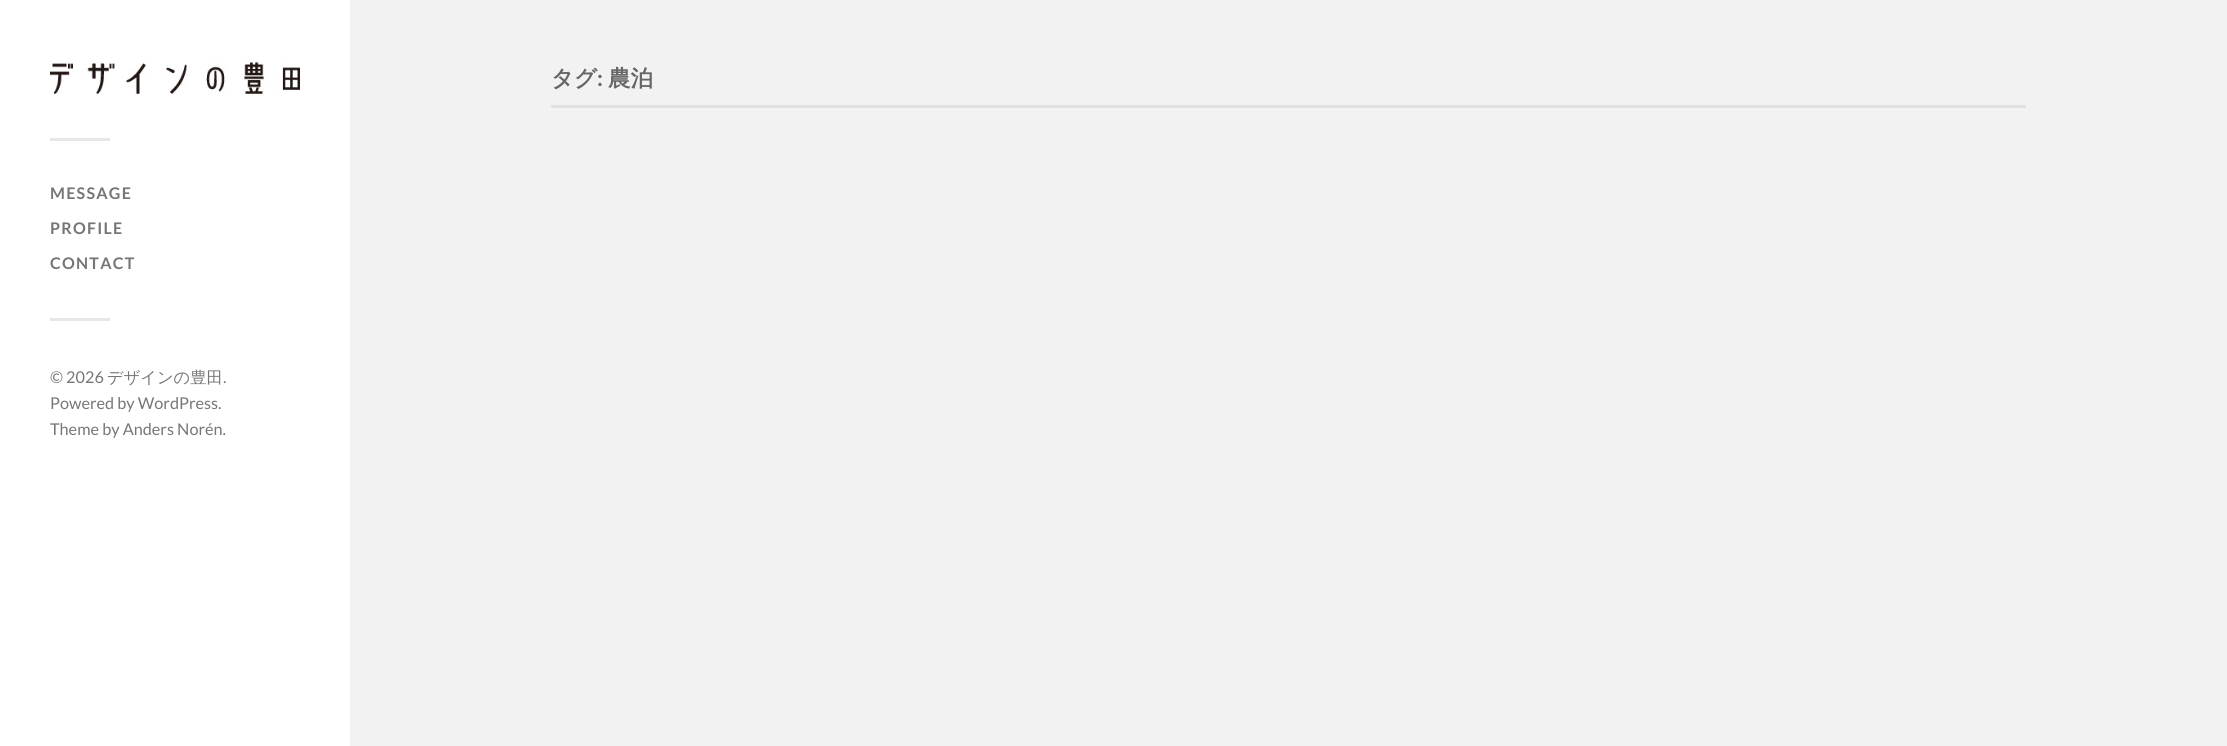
import math
import cairo

surface = cairo.ImageSurface(cairo.Format.RGB24, 2227, 746)
ctx = cairo.Context(surface)
options = cairo.FontOptions()
options.set_hint_metrics(cairo.HintMetrics.OFF)
options.set_hint_style(cairo.HintStyle.NONE)
ctx.set_font_options(options)
ctx.set_miter_limit(4)


def ink(r, g, b):
    ctx.set_source_rgb(r / 255, g / 255, b / 255)


def write(x, y, s, family, size, color, bold=False, italic=False):
    ctx.select_font_face(family, cairo.FontSlant.ITALIC if italic else cairo.FontSlant.NORMAL, cairo.FontWeight.BOLD if bold else cairo.FontWeight.NORMAL)
    ctx.set_font_size(size)
    ink(*color)
    ctx.move_to(x, y)
    ctx.show_text(s)


def write_spaced(x, y, s, letter, word):
    ctx.move_to(x, y)
    for ch in s:
        ctx.show_text(ch)
        ctx.rel_move_to(letter + word * (ch == ' '), 0)


def block(x, y, w, h, *color):
    ink(*color)
    ctx.rectangle(x, y, w, h)
    ctx.fill()


def paste(path, x, y, w, h):
    ctx.save()
    ctx.set_source_surface(cairo.ImageSurface.create_from_png(path), x, y)
    ctx.rectangle(x, y, w, h)
    ctx.fill()
    ctx.restore()


s1 = dict(family="WenQuanYi Zen Hei", size=22.5, color=(102, 102, 102), bold=True)
s2 = dict(family="Lato", size=22.5, color=(102, 102, 102), bold=True)
s3 = dict(family="Lato", size=16.25, color=(118, 118, 118))
s4 = dict(family="WenQuanYi Zen Hei Medium", size=16.25, color=(118, 118, 118))

ink(242, 242, 242)
ctx.paint()
block(551, 105, 1475, 3, 225, 225, 225)
write(551, 86, "タグ", **s1)
write(597, 86, ":", **s2)
write(608, 86, "農泊", **s1)
block(0, 0, 350, 746, 255, 255, 255)
paste("pic1.png", 50, 62, 250, 32)
block(50, 138, 60, 3, 231, 231, 231)
ctx.select_font_face("Lato", cairo.FontSlant.NORMAL, cairo.FontWeight.BOLD)
ctx.set_font_size(16)
ink(118, 118, 118)
write_spaced(50, 199, "MESSAGE", 1.25, 0)
write_spaced(50, 234, "PROFILE", 1.25, 0)
write_spaced(50, 269, "CONTACT", 1.25, 0)
block(50, 318, 60, 3, 231, 231, 231)
write(50, 383, "© 2026", **s3)
write(107, 383, "デザインの豊田", **s4)
write(223, 383, ".", **s3)
write(50, 409, "Powered by WordPress.", **s3)
write(50, 435, "Theme by Anders Norén.", **s3)
surface.write_to_png("screenshot.png")
